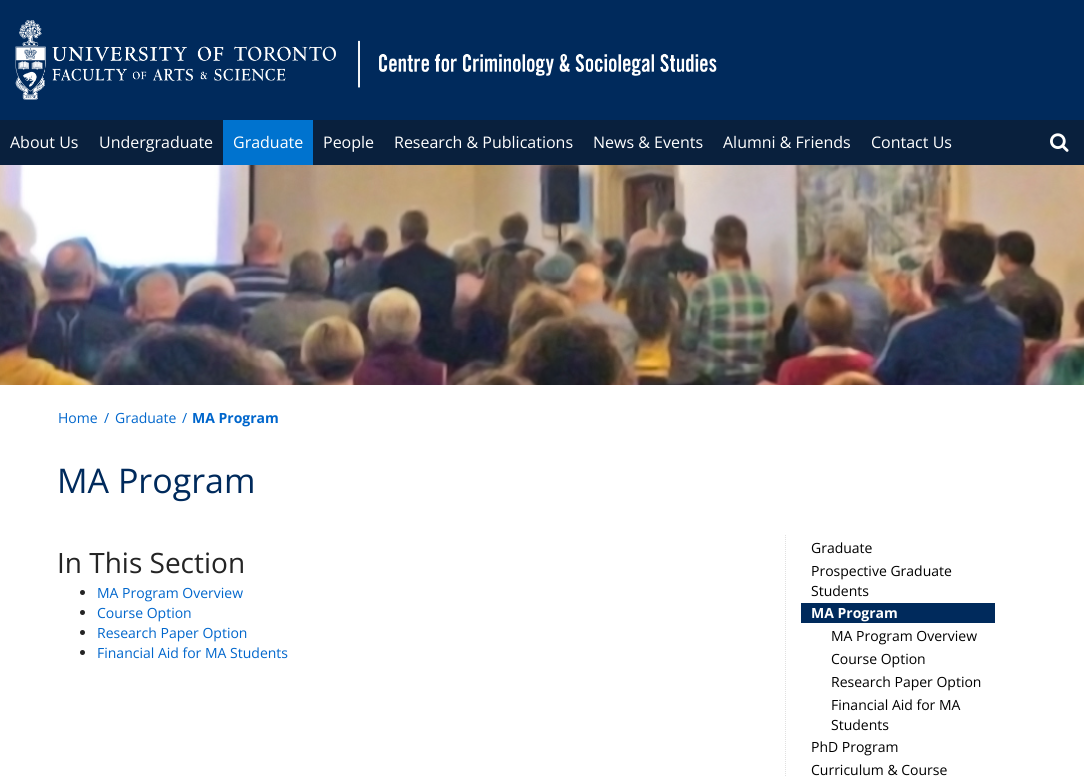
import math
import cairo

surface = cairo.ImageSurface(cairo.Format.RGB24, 1084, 776)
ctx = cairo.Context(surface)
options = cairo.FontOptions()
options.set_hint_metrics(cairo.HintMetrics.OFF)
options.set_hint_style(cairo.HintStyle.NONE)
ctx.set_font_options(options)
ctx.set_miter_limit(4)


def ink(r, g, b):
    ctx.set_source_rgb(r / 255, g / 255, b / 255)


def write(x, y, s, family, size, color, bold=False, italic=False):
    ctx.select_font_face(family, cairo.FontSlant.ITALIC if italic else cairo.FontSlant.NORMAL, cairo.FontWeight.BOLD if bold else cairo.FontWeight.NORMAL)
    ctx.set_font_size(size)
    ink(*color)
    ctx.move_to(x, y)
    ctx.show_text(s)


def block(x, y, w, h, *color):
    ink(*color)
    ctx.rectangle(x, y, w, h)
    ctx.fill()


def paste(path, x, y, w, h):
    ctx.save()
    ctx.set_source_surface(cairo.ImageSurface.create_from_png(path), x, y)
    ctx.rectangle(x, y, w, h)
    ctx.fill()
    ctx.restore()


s1 = dict(family="Open Sans", size=16, color=(255, 255, 255))
s2 = dict(family="Open Sans", size=14, color=(0, 102, 204))
s3 = dict(family="Open Sans", size=14, color=(0, 102, 204), bold=True)
s4 = dict(family="Open Sans", size=34, color=(0, 42, 92))
s5 = dict(family="Open Sans", size=28, color=(36, 36, 36))
s6 = dict(family="Open Sans", size=14, color=(0, 0, 0))
s7 = dict(family="Open Sans", size=14, color=(255, 255, 255), bold=True)

ink(255, 255, 255)
ctx.paint()
block(0, 0, 1084, 120, 0, 42, 92)
paste("pic1.png", 15, 20, 702, 80)
block(0, 120, 1084, 45, 9, 32, 61)
write(10, 148, "About Us", **s1)
write(99, 148, "Undergraduate", **s1)
block(223, 120, 90, 45, 0, 115, 207)
write(233, 148, "Graduate", **s1)
write(323, 148, "People", **s1)
write(394, 148, "Research & Publications", **s1)
write(593, 148, "News & Events", **s1)
write(723, 148, "Alumni & Friends", **s1)
write(871, 148, "Contact Us", **s1)
paste("pic2.png", 1050, 133, 19, 19)
paste("pic3.png", 0, 165, 1084, 220)
write(58, 423, "Home", **s2)
write(104, 423, "/", **s2)
write(115, 423, "Graduate", **s2)
write(182, 423, "/", **s2)
write(192, 423, "MA Program", **s3)
write(57, 493, "MA Program", **s4)
write(57, 573, "In This Section", **s5)
ctx.new_path()
ctx.arc(82.5, 592.5, 2.5, 0, 2 * math.pi)
ctx.fill()
write(97, 598, "MA Program Overview", **s2)
ink(36, 36, 36)
ctx.new_path()
ctx.arc(82.5, 612.5, 2.5, 0, 2 * math.pi)
ctx.fill()
write(97, 618, "Course Option", **s2)
ink(36, 36, 36)
ctx.new_path()
ctx.arc(82.5, 632.5, 2.5, 0, 2 * math.pi)
ctx.fill()
write(97, 638, "Research Paper Option", **s2)
ink(36, 36, 36)
ctx.new_path()
ctx.arc(82.5, 652.5, 2.5, 0, 2 * math.pi)
ctx.fill()
write(97, 658, "Financial Aid for MA Students", **s2)
ctx.new_path()
ctx.move_to(785.5, 535)
ctx.line_to(785.5, 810)
ink(224, 224, 224)
ctx.set_line_width(1)
ctx.set_dash([1, 1])
ctx.stroke()
write(811, 553, "Graduate", **s6)
write(811, 576, "Prospective Graduate", **s6)
write(811, 596, "Students", **s6)
block(801, 603, 194, 20, 0, 42, 92)
write(811, 618, "MA Program", **s7)
write(831, 641, "MA Program Overview", **s6)
write(831, 664, "Course Option", **s6)
write(831, 687, "Research Paper Option", **s6)
write(831, 710, "Financial Aid for MA", **s6)
write(831, 730, "Students", **s6)
write(811, 752, "PhD Program", **s6)
write(811, 775, "Curriculum & Course", **s6)
surface.write_to_png("screenshot.png")
